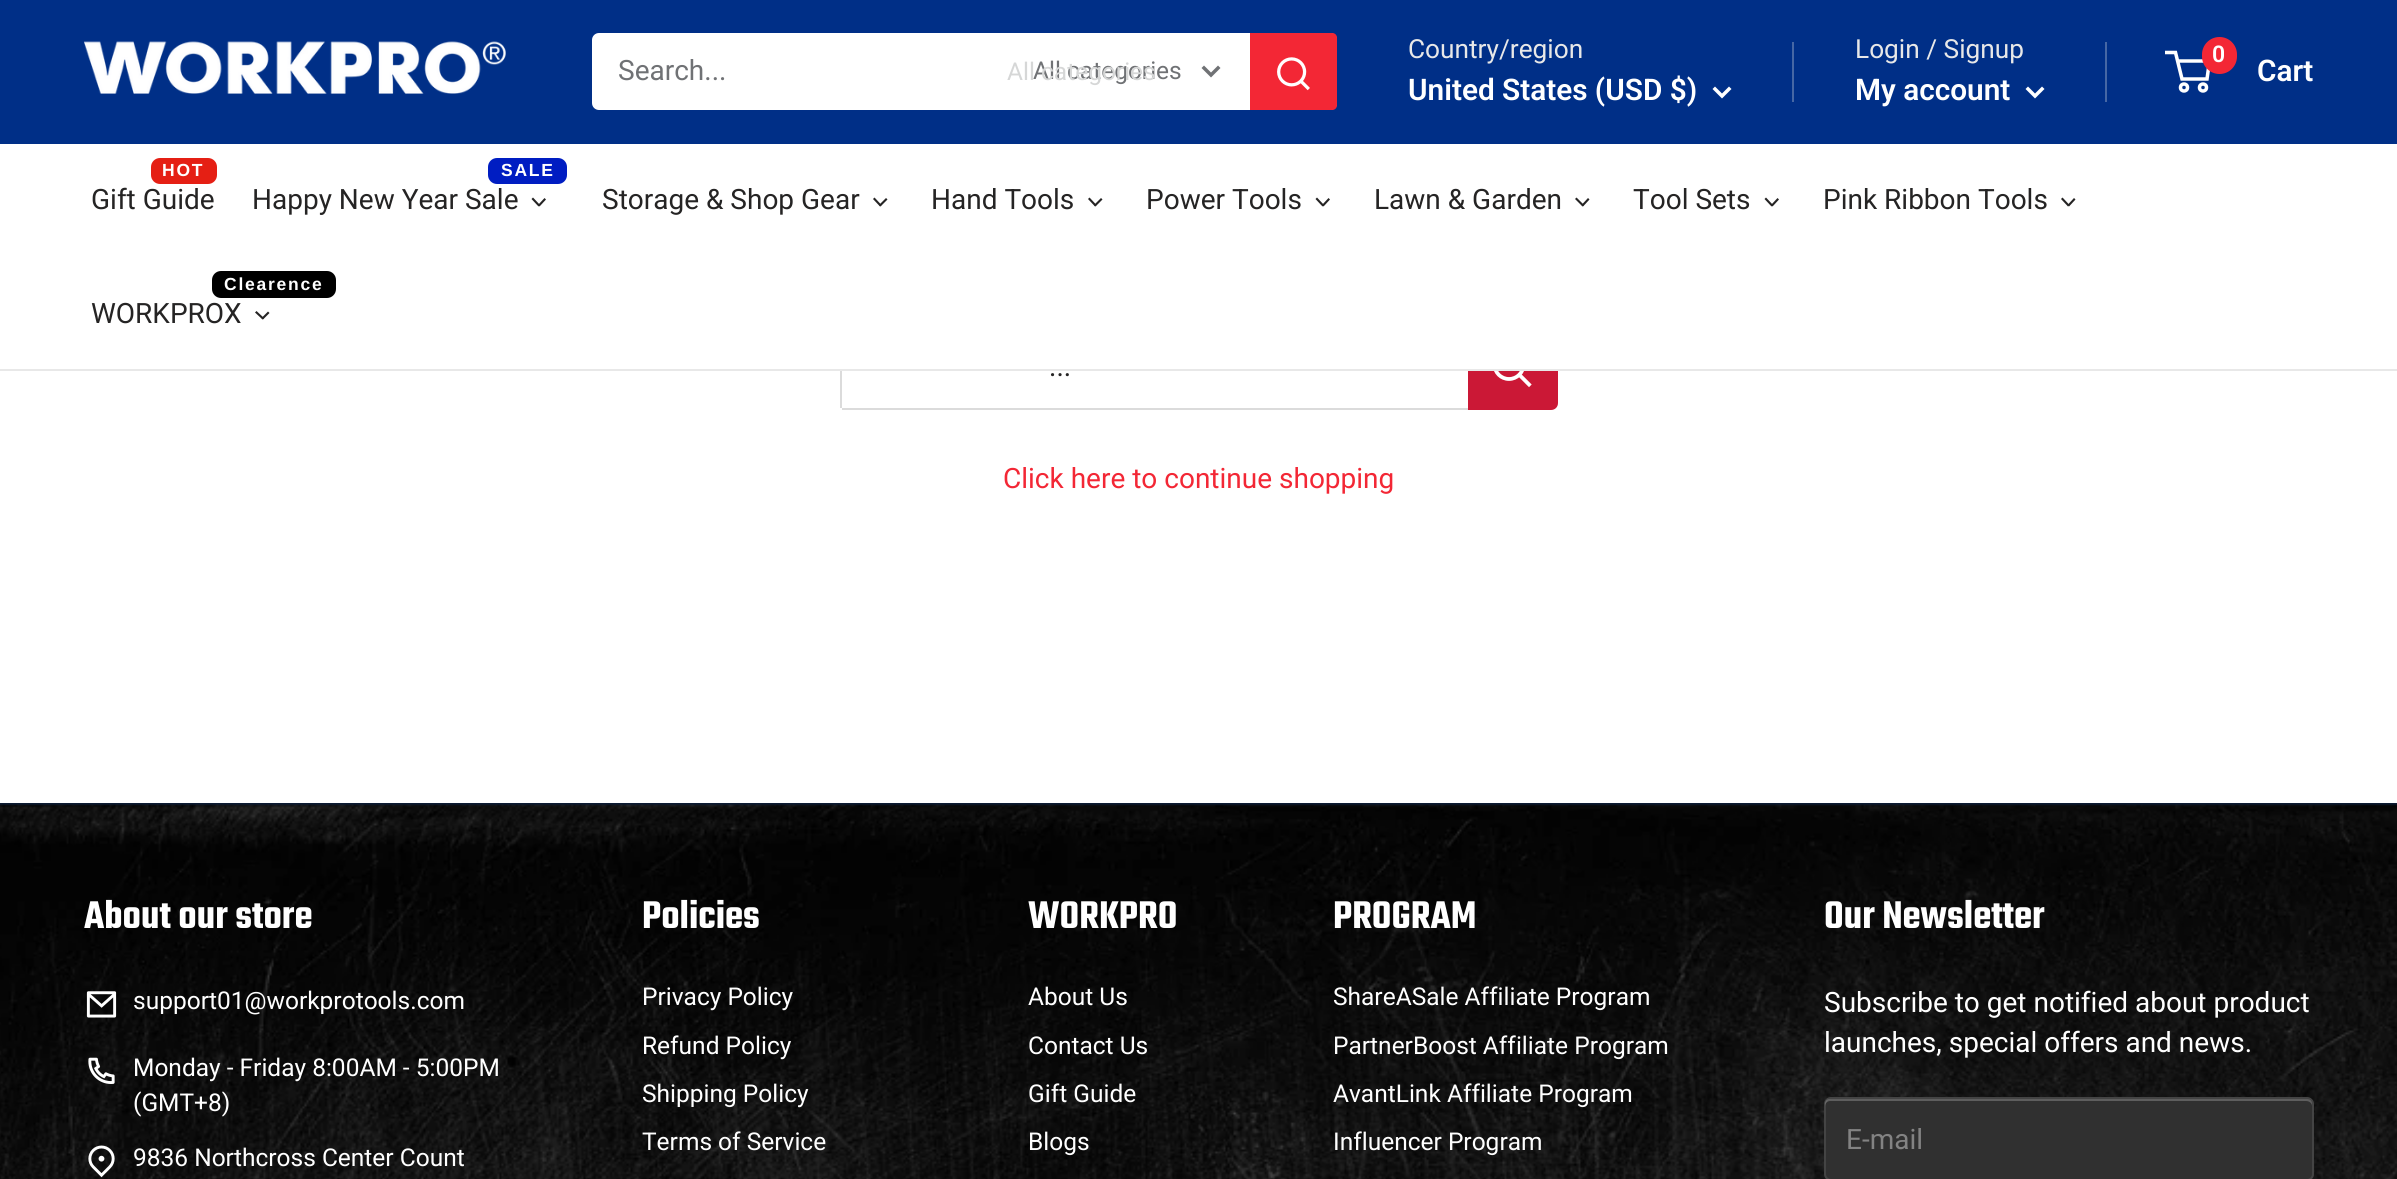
import math
import cairo

surface = cairo.ImageSurface(cairo.Format.RGB24, 2397, 1179)
ctx = cairo.Context(surface)
options = cairo.FontOptions()
options.set_hint_metrics(cairo.HintMetrics.OFF)
options.set_hint_style(cairo.HintStyle.NONE)
ctx.set_font_options(options)
ctx.set_miter_limit(4)


def ink(r, g, b):
    ctx.set_source_rgb(r / 255, g / 255, b / 255)


def write(x, y, s, family, size, color, bold=False, italic=False):
    ctx.select_font_face(family, cairo.FontSlant.ITALIC if italic else cairo.FontSlant.NORMAL, cairo.FontWeight.BOLD if bold else cairo.FontWeight.NORMAL)
    ctx.set_font_size(size)
    ink(*color)
    ctx.move_to(x, y)
    ctx.show_text(s)


def write_spaced(x, y, s, letter, word):
    ctx.move_to(x, y)
    for ch in s:
        ctx.show_text(ch)
        ctx.rel_move_to(letter + word * (ch == ' '), 0)


def block(x, y, w, h, *color):
    ink(*color)
    ctx.rectangle(x, y, w, h)
    ctx.fill()


def round_path(x, y, w, h, r):
    ctx.new_sub_path()
    for i, (u, v) in enumerate([(x + w - r, y + h - r), (x + r, y + h - r), (x + r, y + r), (x + w - r, y + r)]):
        ctx.arc(u, v, r, i * math.pi / 2, (i + 1) * math.pi / 2)
    ctx.close_path()


def paste(path, x, y, w, h):
    ctx.save()
    ctx.set_source_surface(cairo.ImageSurface.create_from_png(path), x, y)
    ctx.rectangle(x, y, w, h)
    ctx.fill()
    ctx.restore()


s1 = dict(family="Roboto", size=28, color=(112, 114, 117))
s2 = dict(family="Roboto", size=24.5, color=(112, 114, 117))
s3 = dict(family="Roboto", size=24.5, color=(214, 215, 215))
s4 = dict(family="Roboto", size=26.25, color=(232, 232, 232))
s5 = dict(family="Roboto SemiBold", size=29.75, color=(255, 255, 255))
s6 = dict(family="Roboto SemiBold", size=23, color=(255, 255, 255))
s7 = dict(family="Roboto", size=28, color=(37, 36, 36))
s8 = dict(family="Roboto", size=28, color=(243, 39, 53))
s9 = dict(family="Teko SemiBold", size=42, color=(255, 255, 255))
s10 = dict(family="Roboto", size=24.5, color=(255, 255, 255))
s11 = dict(family="Roboto", size=28, color=(255, 255, 255))
s12 = dict(family="Roboto", size=28, color=(131, 131, 131))

ink(255, 255, 255)
ctx.paint()
block(0, 0, 2397, 144, 0, 47, 135)
paste("pic1.png", 84, 41, 422, 53)
ink(255, 255, 255)
round_path(592, 33, 745, 77, 7)
ctx.fill()
write(618, 80, "Search...", **s1)
write(1033, 79, "All categories", **s2)
ctx.new_path()
ctx.move_to(1218, 68)
ctx.line_to(1211, 75)
ctx.line_to(1204, 68)
ctx.set_line_width(3.5)
ctx.set_line_cap(cairo.LineCap.SQUARE)
ctx.stroke()
write(1007, 80, "All categories", **s3)
ink(243, 39, 53)
ctx.new_path()
ctx.move_to(1250, 33)
ctx.line_to(1332, 33)
ctx.curve_to(1335, 33, 1337, 35, 1337, 38)
ctx.line_to(1337, 105)
ctx.curve_to(1337, 108, 1335, 110, 1332, 110)
ctx.line_to(1250, 110)
ctx.close_path()
ctx.fill()
paste("pic2.png", 1277, 57, 33, 34)
write(1408, 58, "Country/region", **s4)
write(1408, 100, "United States (USD $)", **s5)
ctx.new_path()
ctx.move_to(1729, 89)
ctx.line_to(1722, 96)
ctx.line_to(1715, 89)
ctx.stroke()
block(1792, 42, 2, 60, 70, 103, 164)
write(1855, 58, "Login / Signup", **s4)
block(2105, 42, 2, 60, 70, 103, 164)
write(1855, 100, "My account", **s5)
ctx.new_path()
ctx.move_to(2042, 89)
ctx.line_to(2035, 96)
ctx.line_to(2028, 89)
ctx.stroke()
ctx.arc(2184, 87.5, 3.5, 0, 2 * math.pi)
ctx.set_line_cap(cairo.LineCap.BUTT)
ctx.stroke()
ctx.arc(2203, 87.5, 3.5, 0, 2 * math.pi)
ctx.stroke()
ctx.new_path()
ctx.move_to(2177.5, 61)
ctx.line_to(2209.5, 61)
ctx.line_to(2207, 79)
ctx.line_to(2182, 79)
ctx.line_to(2175.5, 52.5)
ctx.line_to(2165, 52.5)
ctx.stroke()
ink(243, 39, 53)
round_path(2202, 37, 35, 37, 17.5)
ctx.fill()
write(2212, 62, "0", **s6)
write(2257, 81, "Cart", **s5)
ink(203, 24, 54)
ctx.new_path()
ctx.move_to(1468, 326)
ctx.line_to(1551, 326)
ctx.curve_to(1555, 326, 1558, 329, 1558, 333)
ctx.line_to(1558, 403)
ctx.curve_to(1558, 407, 1555, 410, 1551, 410)
ctx.line_to(1468, 410)
ctx.close_path()
ctx.fill()
ctx.new_path()
ctx.move_to(1529, 384.5)
ctx.line_to(1519.5, 375)
ink(255, 255, 255)
ctx.set_line_width(3.8)
ctx.set_line_cap(cairo.LineCap.SQUARE)
ctx.stroke()
ctx.arc(1509, 364.5, 14.5, 0, 2 * math.pi)
ctx.set_line_cap(cairo.LineCap.BUTT)
ctx.stroke()
block(1468, 326, 90, 43, 255, 255, 255)
block(0, 369, 2397, 2, 232, 232, 232)
ink(229, 31, 20)
round_path(151, 158, 66, 26, 9)
ctx.fill()
ctx.select_font_face("Liberation Sans", cairo.FontSlant.NORMAL, cairo.FontWeight.BOLD)
ctx.set_font_size(17.5)
ink(255, 255, 255)
write_spaced(162, 176, "HOT", 1.75, 0)
write(91, 209, "Gift Guide", **s7)
ink(0, 29, 194)
round_path(488, 158, 79, 26, 9)
ctx.fill()
ctx.select_font_face("Liberation Sans", cairo.FontSlant.NORMAL, cairo.FontWeight.BOLD)
ctx.set_font_size(17.5)
ink(255, 255, 255)
write_spaced(501, 176, "SALE", 1.75, 0)
write(252, 209, "Happy New Year Sale", **s7)
ctx.new_path()
ctx.move_to(544.5, 198)
ctx.line_to(546, 199.5)
ctx.line_to(539.5, 206.5)
ctx.line_to(538, 205)
ctx.close_path()
ctx.fill()
ctx.new_path()
ctx.move_to(533, 197.5)
ctx.line_to(540, 205)
ctx.line_to(538.5, 206.5)
ctx.line_to(531.5, 199)
ctx.close_path()
ctx.fill()
write(602, 209, "Storage & Shop Gear", **s7)
ctx.new_path()
ctx.move_to(886, 198)
ctx.line_to(887.5, 199.5)
ctx.line_to(880.5, 206.5)
ctx.line_to(879, 205)
ctx.close_path()
ctx.fill()
ctx.new_path()
ctx.move_to(874.5, 197.5)
ctx.line_to(881.5, 205)
ctx.line_to(880, 206.5)
ctx.line_to(873, 199)
ctx.close_path()
ctx.fill()
write(931, 209, "Hand Tools", **s7)
ctx.new_path()
ctx.move_to(1101, 198)
ctx.line_to(1102.5, 199.5)
ctx.line_to(1095.5, 206.5)
ctx.line_to(1094, 205)
ctx.close_path()
ctx.fill()
ctx.new_path()
ctx.move_to(1089.5, 197.5)
ctx.line_to(1096.5, 205)
ctx.line_to(1095, 206.5)
ctx.line_to(1088, 199)
ctx.close_path()
ctx.fill()
write(1146, 209, "Power Tools", **s7)
ctx.new_path()
ctx.move_to(1328.5, 198)
ctx.line_to(1330, 199.5)
ctx.line_to(1323.5, 206.5)
ctx.line_to(1322, 205)
ctx.close_path()
ctx.fill()
ctx.new_path()
ctx.move_to(1317, 197.5)
ctx.line_to(1324, 205)
ctx.line_to(1322.5, 206.5)
ctx.line_to(1315.5, 199)
ctx.close_path()
ctx.fill()
write(1374, 209, "Lawn & Garden", **s7)
ctx.new_path()
ctx.move_to(1588, 198)
ctx.line_to(1589.5, 199.5)
ctx.line_to(1583, 206.5)
ctx.line_to(1581.5, 205)
ctx.close_path()
ctx.fill()
ctx.new_path()
ctx.move_to(1576.5, 197.5)
ctx.line_to(1584, 205)
ctx.line_to(1582.5, 206.5)
ctx.line_to(1575, 199)
ctx.close_path()
ctx.fill()
write(1633, 209, "Tool Sets", **s7)
ctx.new_path()
ctx.move_to(1777.5, 198)
ctx.line_to(1779, 199.5)
ctx.line_to(1772.5, 206.5)
ctx.line_to(1771, 205)
ctx.close_path()
ctx.fill()
ctx.new_path()
ctx.move_to(1766, 197.5)
ctx.line_to(1773, 205)
ctx.line_to(1771.5, 206.5)
ctx.line_to(1764.5, 199)
ctx.close_path()
ctx.fill()
write(1823, 209, "Pink Ribbon Tools", **s7)
ctx.new_path()
ctx.move_to(2074, 198)
ctx.line_to(2075.5, 199.5)
ctx.line_to(2069, 206.5)
ctx.line_to(2067.5, 205)
ctx.close_path()
ctx.fill()
ctx.new_path()
ctx.move_to(2062.5, 197.5)
ctx.line_to(2069.5, 205)
ctx.line_to(2068, 206.5)
ctx.line_to(2061, 199)
ctx.close_path()
ctx.fill()
ink(0, 0, 0)
round_path(212, 271, 124, 27, 9)
ctx.fill()
ctx.select_font_face("Liberation Sans", cairo.FontSlant.NORMAL, cairo.FontWeight.BOLD)
ctx.set_font_size(17.5)
ink(255, 255, 255)
write_spaced(224, 290, "Clearence", 1.75, 0)
write(91, 323, "WORKPROX", **s7)
ctx.new_path()
ctx.move_to(268, 311.5)
ctx.line_to(269.5, 313)
ctx.line_to(263, 319.5)
ctx.line_to(261.5, 318)
ctx.close_path()
ctx.fill()
ctx.new_path()
ctx.move_to(256.5, 311)
ctx.line_to(264, 318)
ctx.line_to(262.5, 319.5)
ctx.line_to(255, 312.5)
ctx.close_path()
ctx.fill()
block(842, 408, 626, 2, 219, 219, 219)
block(840, 371, 2, 37, 219, 219, 219)
write(1049, 376, "...", **s7)
write(1003, 488, "Click here to continue shopping", **s8)
block(0, 803, 2397, 3, 12, 28, 54)
paste("pic3.png", 0, 803, 2397, 376)
write(84, 928, "About our store", **s9)
paste("pic4.png", 86, 991, 31, 27)
write(133, 1009, "support01@workprotools.com", **s10)
paste("pic5.png", 88, 1057, 27, 27)
write(133, 1076, "Monday - Friday 8:00AM - 5:00PM", **s10)
write(133, 1111, "(GMT+8)", **s10)
paste("pic6.png", 88, 1145, 27, 33)
write(133, 1166, "9836 Northcross Center Count", **s10)
write(642, 928, "Policies", **s9)
write(642, 1005, "Privacy Policy", **s10)
write(642, 1054, "Refund Policy", **s10)
write(642, 1102, "Shipping Policy", **s10)
write(642, 1150, "Terms of Service", **s10)
write(1028, 928, "WORKPRO", **s9)
write(1028, 1005, "About Us", **s10)
write(1028, 1054, "Contact Us", **s10)
write(1028, 1102, "Gift Guide", **s10)
write(1028, 1150, "Blogs", **s10)
write(1333, 928, "PROGRAM", **s9)
write(1333, 1005, "ShareASale Affiliate Program", **s10)
write(1333, 1054, "PartnerBoost Affiliate Program", **s10)
write(1333, 1102, "AvantLink Affiliate Program", **s10)
write(1333, 1150, "Influencer Program", **s10)
write(1824, 928, "Our Newsletter", **s9)
write(1824, 1012, "Subscribe to get notified about product", **s11)
write(1824, 1052, "launches, special offers and news.", **s11)
ink(48, 48, 48)
round_path(1824, 1097, 490, 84, 7)
ctx.fill()
ink(94, 94, 94)
ctx.new_path()
ctx.move_to(1830, 1101)
ctx.line_to(2306, 1101)
ctx.curve_to(2309, 1101, 2312, 1103, 2312, 1106)
ctx.line_to(2312, 1104)
ctx.curve_to(2312, 1101, 2310, 1099, 2307, 1099)
ctx.line_to(1830, 1099)
ctx.curve_to(1827, 1099, 1825, 1101, 1825, 1104)
ctx.line_to(1825, 1106)
ctx.curve_to(1825, 1103, 1828, 1101, 1830, 1101)
ctx.close_path()
ctx.fill()
round_path(1825, 1098, 488, 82, 6)
ctx.set_source_rgba(1, 1, 1, 0.1)
ctx.set_line_width(2)
ctx.stroke()
write(1846, 1149, "E-mail", **s12)
surface.write_to_png("screenshot.png")
